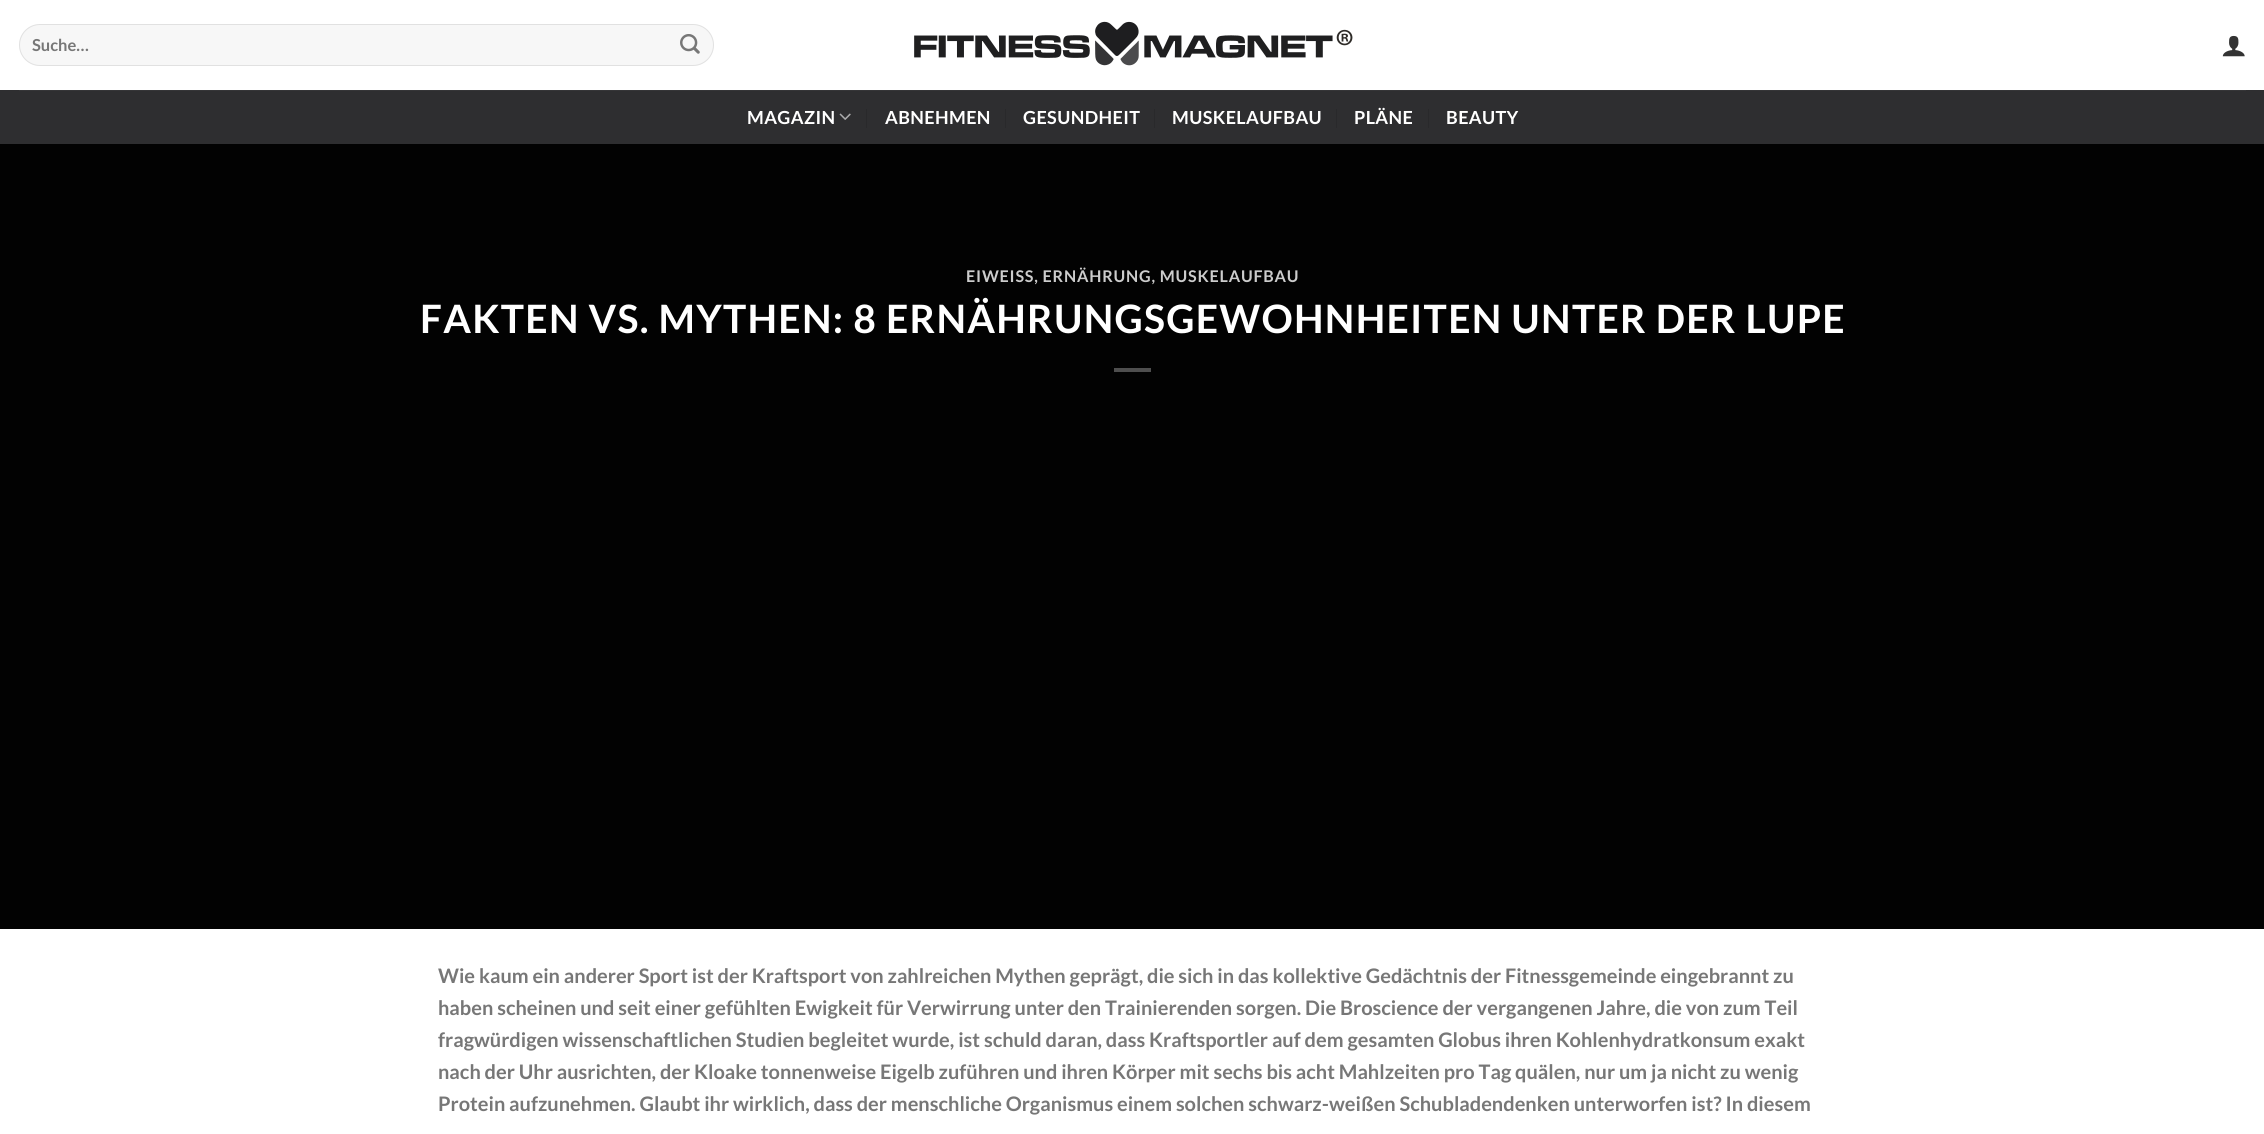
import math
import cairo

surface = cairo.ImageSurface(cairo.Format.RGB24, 2264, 1134)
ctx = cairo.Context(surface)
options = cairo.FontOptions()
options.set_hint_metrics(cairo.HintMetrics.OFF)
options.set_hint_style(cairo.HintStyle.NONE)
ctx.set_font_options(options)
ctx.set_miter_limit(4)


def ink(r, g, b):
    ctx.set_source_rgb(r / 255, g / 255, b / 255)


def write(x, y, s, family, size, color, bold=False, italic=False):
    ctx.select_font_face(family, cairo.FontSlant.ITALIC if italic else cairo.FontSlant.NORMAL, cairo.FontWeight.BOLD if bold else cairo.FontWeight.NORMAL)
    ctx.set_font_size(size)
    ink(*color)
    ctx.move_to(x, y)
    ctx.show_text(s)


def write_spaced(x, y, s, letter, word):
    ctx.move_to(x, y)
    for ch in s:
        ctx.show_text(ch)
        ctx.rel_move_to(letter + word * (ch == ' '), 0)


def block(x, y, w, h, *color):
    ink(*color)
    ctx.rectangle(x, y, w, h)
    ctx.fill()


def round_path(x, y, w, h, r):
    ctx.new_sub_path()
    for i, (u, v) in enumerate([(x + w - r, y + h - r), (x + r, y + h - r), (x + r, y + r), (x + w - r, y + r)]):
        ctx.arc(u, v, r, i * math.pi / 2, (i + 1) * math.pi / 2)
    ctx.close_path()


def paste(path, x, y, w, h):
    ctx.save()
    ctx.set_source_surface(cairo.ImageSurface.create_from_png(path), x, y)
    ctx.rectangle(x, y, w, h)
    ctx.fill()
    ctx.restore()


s1 = dict(family="Lato", size=16.5, color=(119, 119, 119), bold=True)
s2 = dict(family="Lato", size=20, color=(119, 119, 119), bold=True)

ink(255, 255, 255)
ctx.paint()
ink(247, 247, 247)
round_path(19, 24, 695, 42, 21)
ctx.fill()
round_path(19.5, 24.5, 694, 41, 20.5)
ctx.set_source_rgba(0, 0, 0, 0.09)
ctx.set_line_width(1)
ctx.stroke()
write(32, 51, "Suche…", **s1)
paste("pic1.png", 680, 34, 20, 20)
paste("pic2.png", 914, 21, 439, 45)
paste("pic3.png", 2222, 35, 23, 22)
block(0, 90, 2264, 54, 46, 46, 48)
block(19, 90, 2227, 1, 53, 53, 55)
ctx.set_font_size(18)
ink(255, 255, 255)
write_spaced(747, 124, "MAGAZIN", 0.4, 0)
paste("pic4.png", 839, 113, 12, 7)
block(866, 109, 1, 19, 41, 41, 43)
ink(255, 255, 255)
write_spaced(885, 124, "ABNEHMEN", 0.4, 0)
block(1005, 109, 1, 19, 41, 41, 43)
ink(255, 255, 255)
write_spaced(1023, 124, "GESUNDHEIT", 0.4, 0)
block(1154, 109, 1, 19, 41, 41, 43)
ink(255, 255, 255)
write_spaced(1172, 124, "MUSKELAUFBAU", 0.4, 0)
block(1336, 109, 1, 19, 41, 41, 43)
ink(255, 255, 255)
write_spaced(1354, 124, "PLÄNE", 0.4, 0)
block(1428, 109, 1, 19, 41, 41, 43)
ink(255, 255, 255)
write_spaced(1446, 124, "BEAUTY", 0.4, 0)
block(0, 144, 2264, 785, 2, 2, 2)
ctx.set_font_size(16.1)
ink(204, 204, 204)
write_spaced(966, 282, "EIWEISS, ERNÄHRUNG, MUSKELAUFBAU", 0.8, 0)
ctx.set_font_size(39.1)
ink(255, 255, 255)
write_spaced(420, 333, "FAKTEN VS. MYTHEN: 8 ERNÄHRUNGSGEWOHNHEITEN UNTER DER LUPE", 1.25, 0)
block(1114, 368, 37, 4, 78, 78, 78)
write(438, 983, "Wie kaum ein anderer Sport ist der Kraftsport von zahlreichen Mythen geprägt, die sich in das kollektive Gedächtnis der Fitnessgemeinde eingebrannt zu", **s2)
write(438, 1015, "haben scheinen und seit einer gefühlten Ewigkeit für Verwirrung unter den Trainierenden sorgen. Die Broscience der vergangenen Jahre, die von zum Teil", **s2)
write(438, 1047, "fragwürdigen wissenschaftlichen Studien begleitet wurde, ist schuld daran, dass Kraftsportler auf dem gesamten Globus ihren Kohlenhydratkonsum exakt", **s2)
write(438, 1079, "nach der Uhr ausrichten, der Kloake tonnenweise Eigelb zuführen und ihren Körper mit sechs bis acht Mahlzeiten pro Tag quälen, nur um ja nicht zu wenig", **s2)
write(438, 1111, "Protein aufzunehmen. Glaubt ihr wirklich, dass der menschliche Organismus einem solchen schwarz-weißen Schubladendenken unterworfen ist? In diesem", **s2)
surface.write_to_png("screenshot.png")
